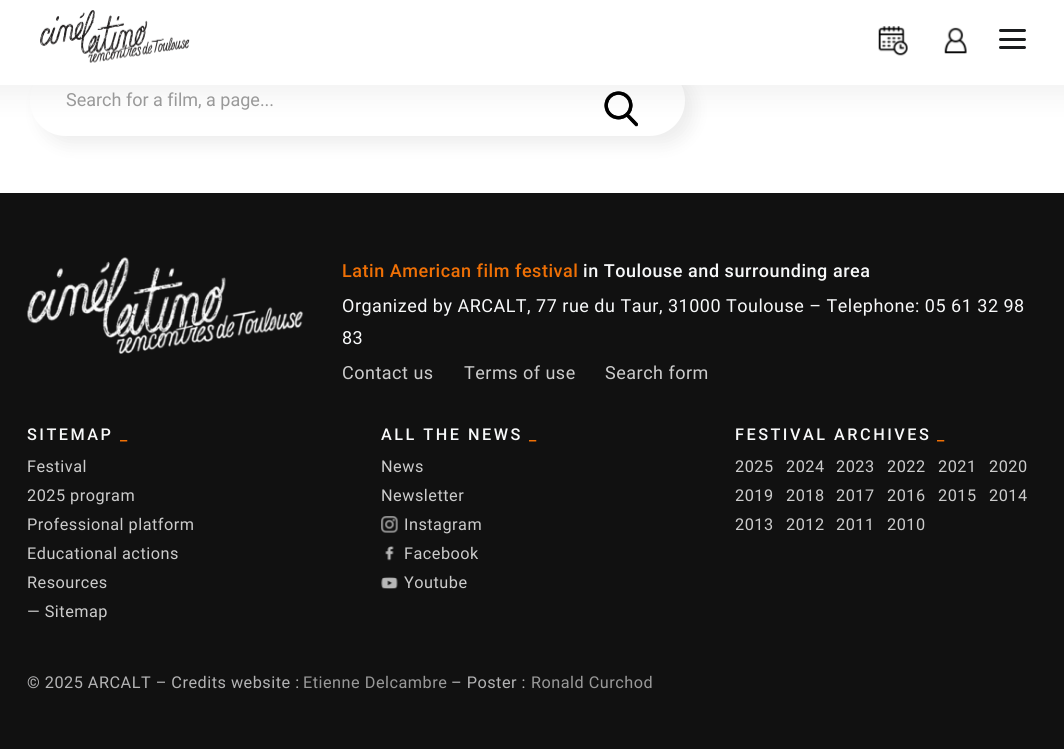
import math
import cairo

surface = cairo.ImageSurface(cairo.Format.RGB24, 1064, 749)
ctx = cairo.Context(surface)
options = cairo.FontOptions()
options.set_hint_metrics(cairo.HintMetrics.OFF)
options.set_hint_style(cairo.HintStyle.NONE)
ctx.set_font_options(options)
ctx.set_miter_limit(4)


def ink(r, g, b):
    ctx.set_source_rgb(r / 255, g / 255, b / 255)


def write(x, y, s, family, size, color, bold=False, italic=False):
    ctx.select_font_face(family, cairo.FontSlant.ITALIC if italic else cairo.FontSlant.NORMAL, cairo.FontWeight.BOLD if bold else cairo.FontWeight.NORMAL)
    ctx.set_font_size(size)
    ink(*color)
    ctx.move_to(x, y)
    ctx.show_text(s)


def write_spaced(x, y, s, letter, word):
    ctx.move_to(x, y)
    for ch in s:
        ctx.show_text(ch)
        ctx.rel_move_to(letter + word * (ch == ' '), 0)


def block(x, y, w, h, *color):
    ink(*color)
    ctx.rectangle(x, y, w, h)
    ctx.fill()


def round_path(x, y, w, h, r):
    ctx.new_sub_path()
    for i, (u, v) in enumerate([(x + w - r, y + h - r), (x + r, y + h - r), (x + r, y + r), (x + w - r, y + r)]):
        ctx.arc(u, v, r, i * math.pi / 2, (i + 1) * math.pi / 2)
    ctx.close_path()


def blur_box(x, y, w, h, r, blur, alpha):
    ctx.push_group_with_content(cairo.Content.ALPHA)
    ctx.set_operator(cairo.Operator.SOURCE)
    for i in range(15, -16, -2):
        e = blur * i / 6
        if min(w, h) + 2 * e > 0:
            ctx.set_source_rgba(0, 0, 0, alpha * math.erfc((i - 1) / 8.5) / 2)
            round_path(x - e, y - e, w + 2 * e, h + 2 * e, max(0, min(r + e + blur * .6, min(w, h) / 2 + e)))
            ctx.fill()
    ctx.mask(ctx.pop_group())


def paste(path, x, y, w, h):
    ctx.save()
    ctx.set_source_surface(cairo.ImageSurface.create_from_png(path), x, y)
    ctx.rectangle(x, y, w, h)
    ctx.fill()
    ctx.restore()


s1 = dict(family="Roboto", size=18, color=(153, 153, 153))

ink(255, 255, 255)
ctx.paint()
ink(0, 0, 0)
blur_box(39, 74, 655, 71, 35.5, 9, 0.07)
ink(255, 255, 255)
round_path(30, 65, 655, 71, 35.5)
ctx.fill()
paste("pic4.png", 604, 91, 34, 36)
ink(0, 0, 0)
blur_box(-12, -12, 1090, 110, 0, 12.5, 0.05)
block(0, 0, 1064, 85, 255, 255, 255)
paste("pic1.png", 40, 10, 150, 53)
paste("pic2.png", 878, 26, 30, 30)
paste("pic3.png", 944, 27, 23, 27)
ink(26, 28, 30)
round_path(999, 29, 27, 3, 1.5)
ctx.fill()
round_path(999, 38, 27, 3, 1.5)
ctx.fill()
round_path(999, 46, 27, 3, 1.5)
ctx.fill()
write(66, 106, "Search for a film, a page...", **s1)
block(0, 193, 1064, 556, 17, 17, 17)
paste("pic5.png", 27, 257, 277, 97)
ctx.select_font_face("Roboto Medium")
ink(240, 112, 5)
write_spaced(342, 277, "Latin American film festival", 0.55, 0)
ink(248, 249, 250)
write_spaced(583, 277, "in Toulouse and surrounding area", 0.55, 0)
ctx.select_font_face("Roboto")
write_spaced(342, 312, "Organized by ARCALT, 77 rue du Taur, 31000 Toulouse – Telephone: 05 61 32 98", 0.5, 0)
write_spaced(342, 344, "83", 0.5, 0)
ink(204, 204, 204)
write_spaced(342, 379, "Contact us", 0.5, 0)
write_spaced(464, 379, "Terms of use", 0.5, 0)
write_spaced(605, 379, "Search form", 0.5, 0)
ctx.select_font_face("Roboto Medium")
ctx.set_font_size(16.25)
ink(248, 249, 250)
write_spaced(27, 440, "SITEMAP", 2.5, 0)
ink(240, 112, 5)
write_spaced(120, 440, "_", 2.5, 0)
ctx.select_font_face("Roboto")
ink(204, 204, 204)
write_spaced(27, 472, "Festival", 0.5, 0)
write_spaced(27, 501, "2025 program", 0.5, 0)
write_spaced(27, 530, "Professional platform", 0.5, 0)
write_spaced(27, 559, "Educational actions", 0.5, 0)
write_spaced(27, 588, "Resources", 0.5, 0)
write_spaced(27, 617, "— Sitemap", 0.5, 0)
ctx.select_font_face("Roboto Medium")
ink(248, 249, 250)
write_spaced(381, 440, "ALL THE NEWS", 2.5, 0)
ink(240, 112, 5)
write_spaced(529, 440, "_", 2.5, 0)
ctx.select_font_face("Roboto")
ink(204, 204, 204)
write_spaced(381, 472, "News", 0.5, 0)
write_spaced(381, 501, "Newsletter", 0.5, 0)
paste("pic6.png", 381, 516, 17, 17)
write_spaced(404, 530, "Instagram", 0.5, 0)
paste("pic7.png", 385, 546, 9, 15)
write_spaced(404, 559, "Facebook", 0.5, 0)
paste("pic8.png", 381, 577, 17, 12)
write_spaced(404, 588, "Youtube", 0.5, 0)
ctx.select_font_face("Roboto Medium")
ink(248, 249, 250)
write_spaced(735, 440, "FESTIVAL ARCHIVES", 2.5, 0)
ink(240, 112, 5)
write_spaced(937, 440, "_", 2.5, 0)
ctx.select_font_face("Roboto")
ink(204, 204, 204)
write_spaced(735, 472, "2025", 0.5, 0)
write_spaced(786, 472, "2024", 0.5, 0)
write_spaced(836, 472, "2023", 0.5, 0)
write_spaced(887, 472, "2022", 0.5, 0)
write_spaced(938, 472, "2021", 0.5, 0)
write_spaced(989, 472, "2020", 0.5, 0)
write_spaced(735, 501, "2019", 0.5, 0)
write_spaced(786, 501, "2018", 0.5, 0)
write_spaced(836, 501, "2017", 0.5, 0)
write_spaced(887, 501, "2016", 0.5, 0)
write_spaced(938, 501, "2015", 0.5, 0)
write_spaced(989, 501, "2014", 0.5, 0)
write_spaced(735, 530, "2013", 0.5, 0)
write_spaced(786, 530, "2012", 0.5, 0)
write_spaced(836, 530, "2011", 0.5, 0)
write_spaced(887, 530, "2010", 0.5, 0)
ink(179, 179, 180)
write_spaced(27, 688, "© 2025 ARCALT – Credits website :", 0.5, 0)
ink(153, 153, 153)
write_spaced(303, 688, "Etienne Delcambre", 0.5, 0)
ink(179, 179, 180)
write_spaced(451, 688, "– Poster :", 0.5, 0)
ink(153, 153, 153)
write_spaced(531, 688, "Ronald Curchod", 0.5, 0)
surface.write_to_png("screenshot.png")
